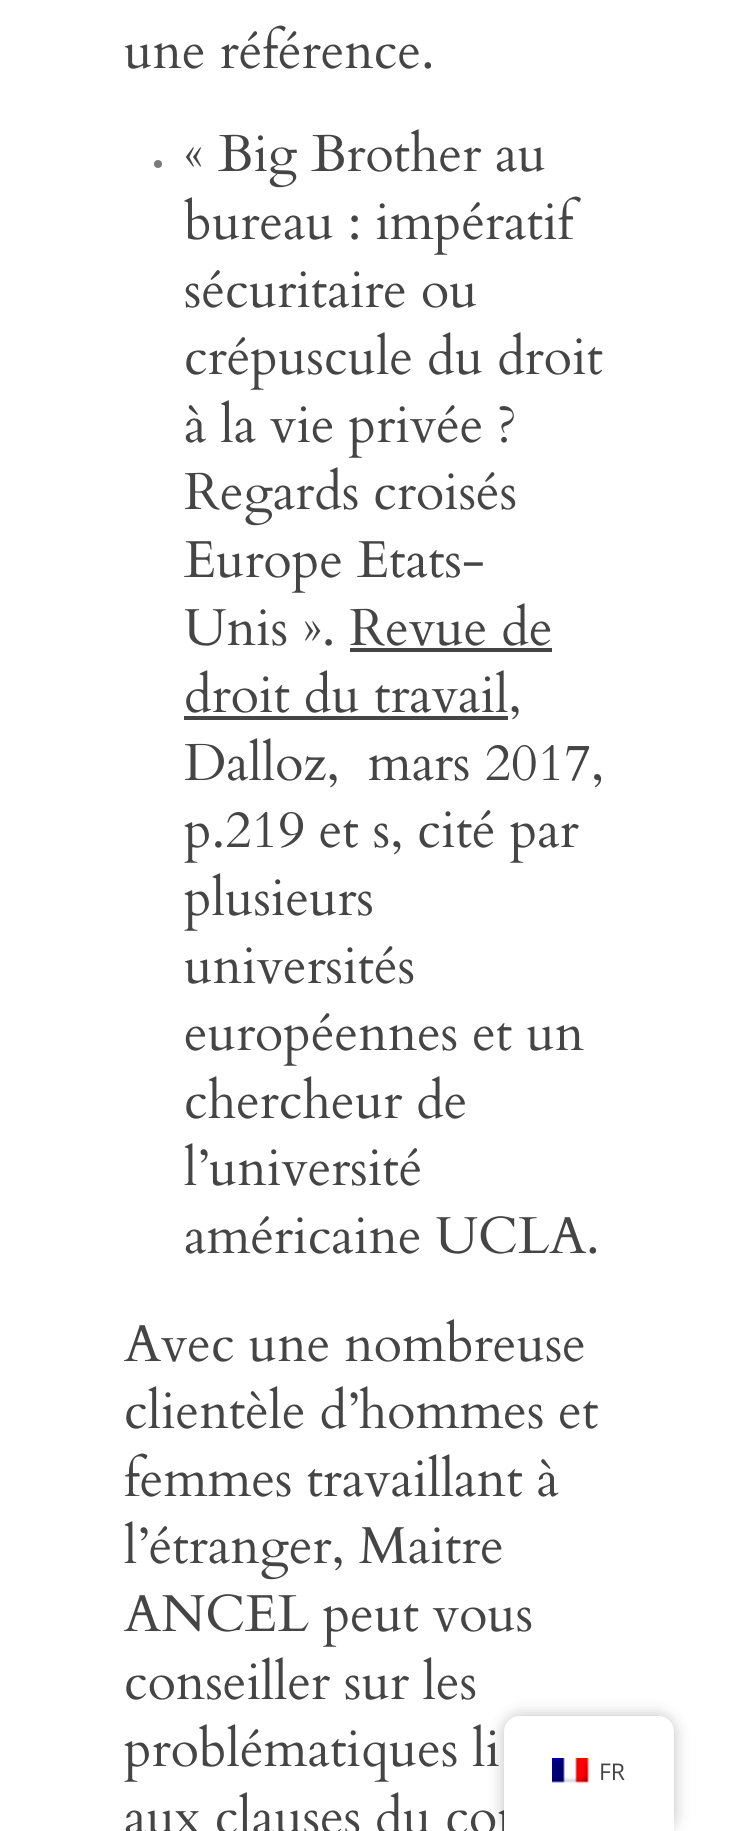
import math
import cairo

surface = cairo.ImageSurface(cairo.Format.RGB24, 747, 1831)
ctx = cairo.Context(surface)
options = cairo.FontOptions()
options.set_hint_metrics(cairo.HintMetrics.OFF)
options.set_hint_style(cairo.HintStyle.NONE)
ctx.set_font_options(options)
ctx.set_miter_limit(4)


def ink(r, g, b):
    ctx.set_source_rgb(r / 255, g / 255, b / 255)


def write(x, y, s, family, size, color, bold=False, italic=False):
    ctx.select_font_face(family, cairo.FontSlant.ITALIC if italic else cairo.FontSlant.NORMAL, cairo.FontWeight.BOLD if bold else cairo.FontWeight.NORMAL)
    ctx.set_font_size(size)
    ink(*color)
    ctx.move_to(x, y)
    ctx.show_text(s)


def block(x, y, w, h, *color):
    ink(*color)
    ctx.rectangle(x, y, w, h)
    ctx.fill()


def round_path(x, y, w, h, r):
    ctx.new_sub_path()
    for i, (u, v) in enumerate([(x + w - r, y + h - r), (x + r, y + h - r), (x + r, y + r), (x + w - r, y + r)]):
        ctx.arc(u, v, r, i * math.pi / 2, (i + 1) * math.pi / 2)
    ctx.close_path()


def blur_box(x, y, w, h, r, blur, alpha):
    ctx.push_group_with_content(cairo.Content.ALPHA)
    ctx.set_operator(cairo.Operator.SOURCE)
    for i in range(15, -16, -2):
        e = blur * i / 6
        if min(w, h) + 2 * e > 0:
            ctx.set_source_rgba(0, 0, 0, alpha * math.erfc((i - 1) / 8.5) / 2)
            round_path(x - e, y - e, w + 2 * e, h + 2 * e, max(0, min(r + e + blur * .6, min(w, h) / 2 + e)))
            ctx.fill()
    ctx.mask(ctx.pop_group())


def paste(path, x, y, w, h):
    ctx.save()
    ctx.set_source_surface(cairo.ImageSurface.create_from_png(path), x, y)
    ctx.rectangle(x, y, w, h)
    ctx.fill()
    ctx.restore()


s1 = dict(family="Cardo", size=52, color=(69, 69, 69))
s2 = dict(family="Open Sans", size=23, color=(69, 69, 69))

ink(255, 255, 255)
ctx.paint()
write(124, 68, "une référence.", **s1)
ink(122, 122, 122)
ctx.new_path()
ctx.arc(158, 164, 4, 0, 2 * math.pi)
ctx.fill()
write(184, 171, "« Big Brother au", **s1)
write(184, 239, "bureau : impératif", **s1)
write(184, 307, "sécuritaire ou", **s1)
write(184, 374, "crépuscule du droit", **s1)
write(184, 442, "à la vie privée ?", **s1)
write(184, 509, "Regards croisés", **s1)
write(184, 577, "Europe Etats-", **s1)
write(184, 645, "Unis ». Revue de", **s1)
block(184, 716, 324, 4, 69, 69, 69)
write(184, 712, "droit du travail,", **s1)
block(350, 648, 202, 4, 69, 69, 69)
write(184, 780, "Dalloz,  mars 2017,", **s1)
write(184, 847, "p.219 et s, cité par", **s1)
write(184, 915, "plusieurs", **s1)
write(184, 983, "universités", **s1)
write(184, 1050, "européennes et un", **s1)
write(184, 1118, "chercheur de", **s1)
write(184, 1185, "l’université", **s1)
write(184, 1253, "américaine UCLA.", **s1)
write(124, 1361, "Avec une nombreuse", **s1)
write(124, 1428, "clientèle d’hommes et", **s1)
write(124, 1496, "femmes travaillant à", **s1)
write(124, 1563, "l’étranger, Maitre", **s1)
write(124, 1631, "ANCEL peut vous", **s1)
write(124, 1699, "conseiller sur les", **s1)
write(124, 1766, "problématiques li", **s1)
write(124, 1834, "aux clauses du con", **s1)
ink(0, 0, 0)
blur_box(504, 1716, 170, 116, 16, 8, 0.25)
ink(255, 255, 255)
ctx.new_path()
ctx.move_to(520, 1716)
ctx.line_to(658, 1716)
ctx.curve_to(667, 1716, 674, 1723, 674, 1732)
ctx.line_to(674, 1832)
ctx.line_to(504, 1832)
ctx.line_to(504, 1732)
ctx.curve_to(504, 1723, 511, 1716, 520, 1716)
ctx.close_path()
ctx.fill()
paste("pic1.png", 552, 1758, 37, 25)
write(599, 1780, "FR", **s2)
surface.write_to_png("screenshot.png")
